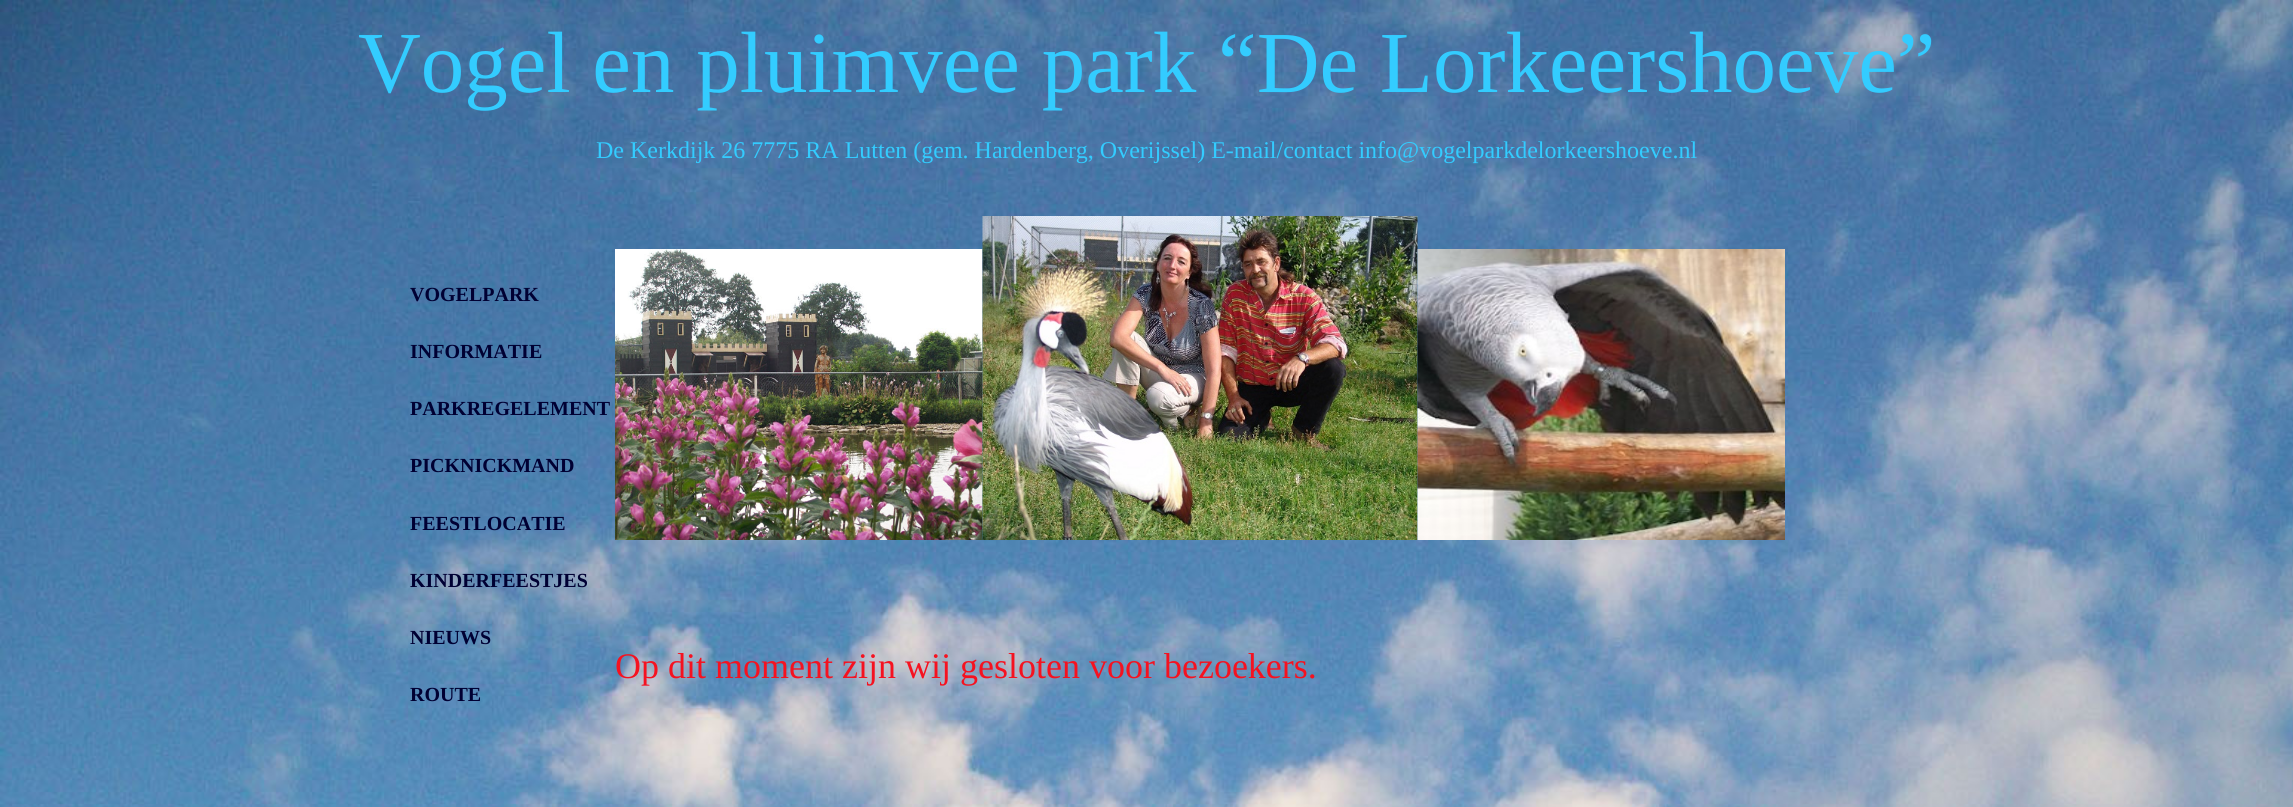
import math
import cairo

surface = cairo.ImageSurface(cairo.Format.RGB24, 2293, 807)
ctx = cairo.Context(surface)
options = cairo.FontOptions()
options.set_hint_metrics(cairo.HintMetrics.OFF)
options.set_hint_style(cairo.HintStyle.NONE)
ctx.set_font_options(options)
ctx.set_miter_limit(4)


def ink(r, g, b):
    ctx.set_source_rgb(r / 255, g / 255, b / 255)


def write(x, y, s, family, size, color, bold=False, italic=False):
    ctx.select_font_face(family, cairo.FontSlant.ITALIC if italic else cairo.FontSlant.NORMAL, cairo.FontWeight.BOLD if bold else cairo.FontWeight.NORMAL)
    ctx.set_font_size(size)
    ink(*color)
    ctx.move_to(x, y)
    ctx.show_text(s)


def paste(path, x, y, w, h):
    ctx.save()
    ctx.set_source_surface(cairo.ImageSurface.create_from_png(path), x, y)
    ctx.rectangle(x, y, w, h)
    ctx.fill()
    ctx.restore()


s1 = dict(family="Liberation Serif", size=87, color=(51, 204, 255))
s2 = dict(family="Liberation Serif", size=24, color=(51, 204, 255))
s3 = dict(family="Liberation Serif", size=20, color=(0, 0, 51), bold=True)
s4 = dict(family="Liberation Serif", size=36, color=(245, 18, 32))

ink(255, 255, 255)
ctx.paint()
paste("pic1.png", 0, 0, 2293, 807)
write(358, 92, "Vogel en pluimvee park “De Lorkeershoeve”", **s1)
write(596, 158, "De Kerkdijk 26 7775 RA Lutten (gem. Hardenberg, Overijssel) E-mail/contact info@vogelparkdelorkeershoeve.nl", **s2)
write(410, 301, "VOGELPARK", **s3)
write(410, 358, "INFORMATIE", **s3)
write(410, 415, "PARKREGELEMENT", **s3)
write(410, 472, "PICKNICKMAND", **s3)
write(410, 530, "FEESTLOCATIE", **s3)
write(410, 587, "KINDERFEESTJES", **s3)
write(410, 644, "NIEUWS", **s3)
write(410, 701, "ROUTE", **s3)
paste("pic2.png", 615, 249, 368, 291)
paste("pic3.png", 982, 216, 436, 324)
paste("pic4.png", 1417, 249, 368, 291)
write(615, 678, "Op dit moment zijn wij gesloten voor bezoekers.", **s4)
surface.write_to_png("screenshot.png")
